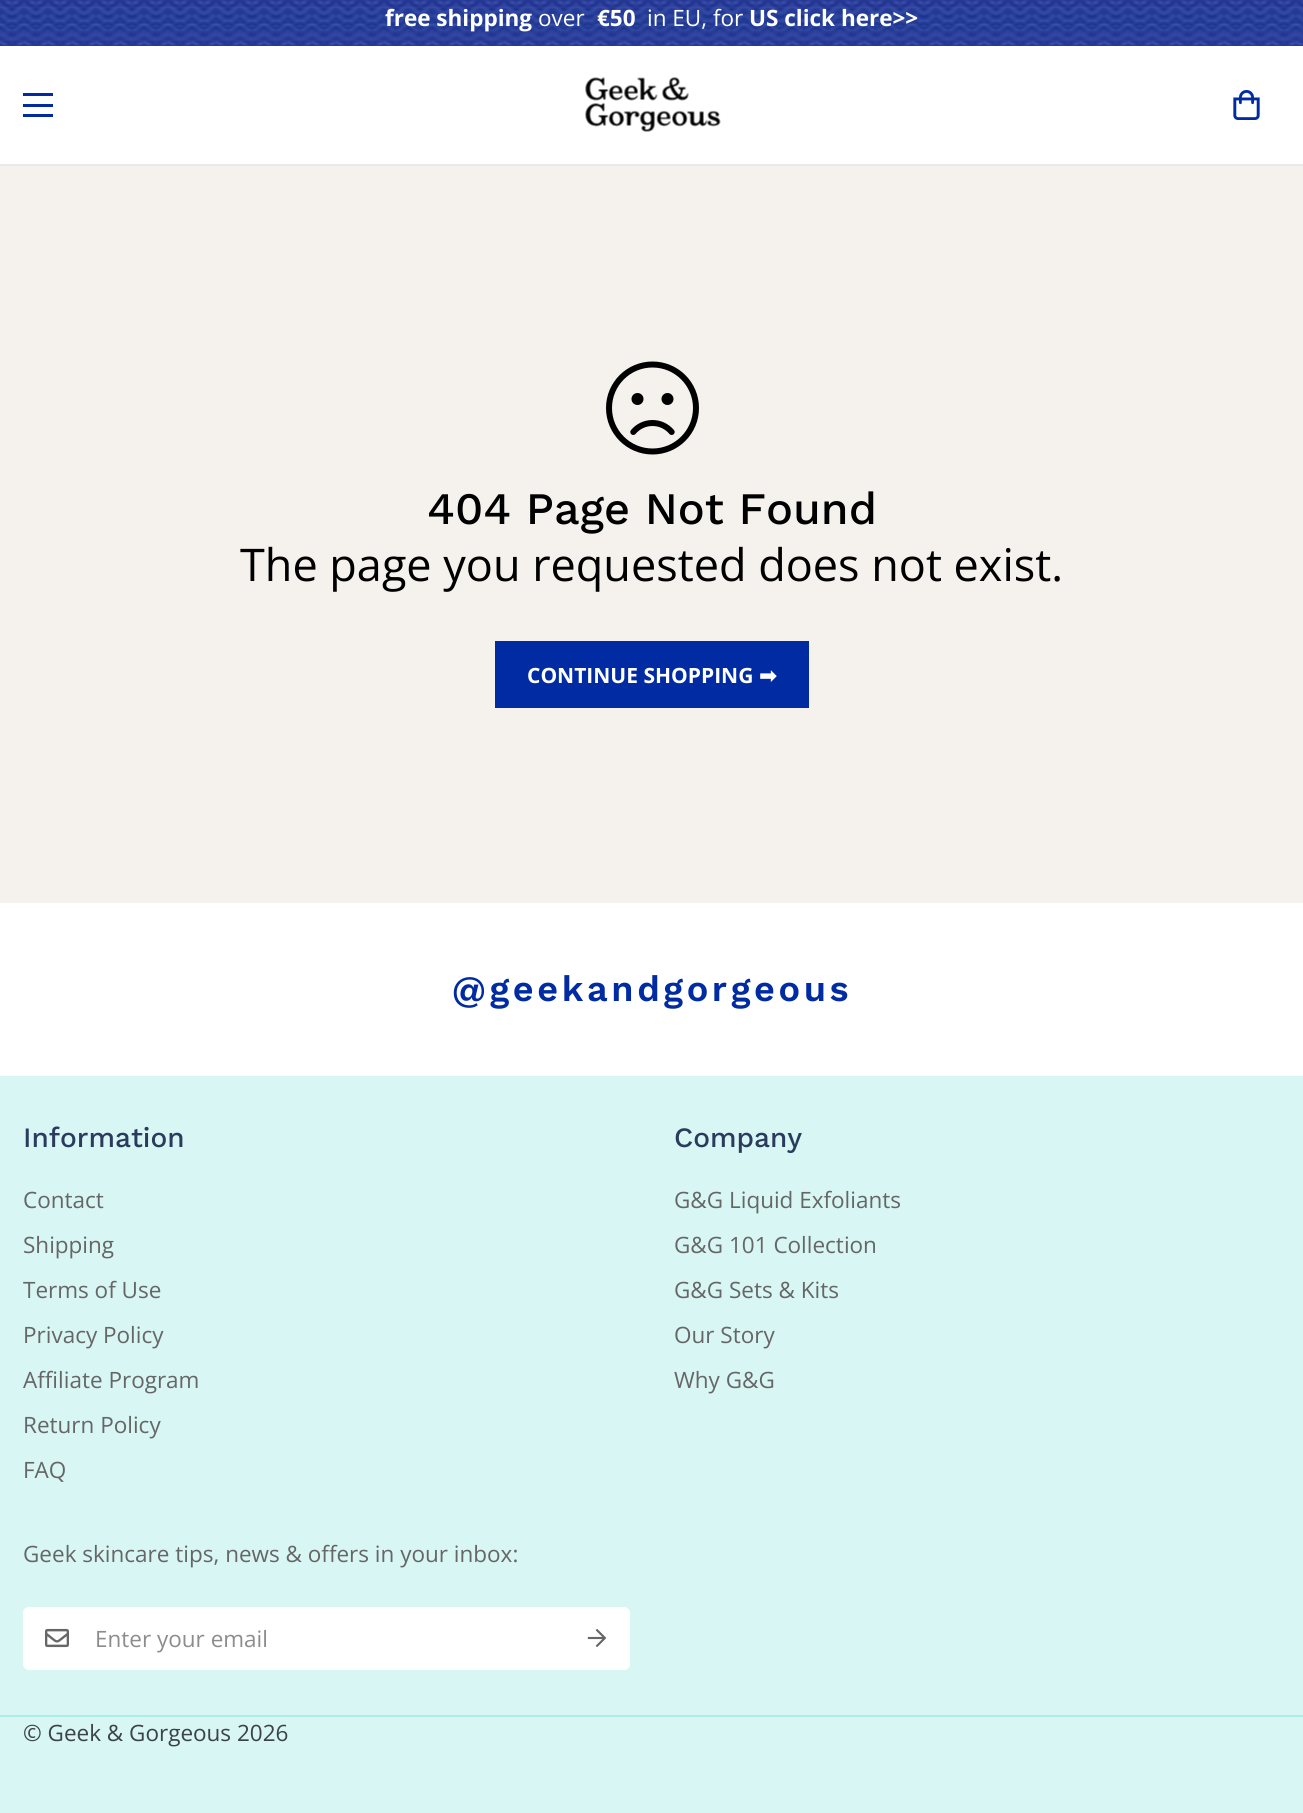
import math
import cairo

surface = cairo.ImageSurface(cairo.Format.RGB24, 1303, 1813)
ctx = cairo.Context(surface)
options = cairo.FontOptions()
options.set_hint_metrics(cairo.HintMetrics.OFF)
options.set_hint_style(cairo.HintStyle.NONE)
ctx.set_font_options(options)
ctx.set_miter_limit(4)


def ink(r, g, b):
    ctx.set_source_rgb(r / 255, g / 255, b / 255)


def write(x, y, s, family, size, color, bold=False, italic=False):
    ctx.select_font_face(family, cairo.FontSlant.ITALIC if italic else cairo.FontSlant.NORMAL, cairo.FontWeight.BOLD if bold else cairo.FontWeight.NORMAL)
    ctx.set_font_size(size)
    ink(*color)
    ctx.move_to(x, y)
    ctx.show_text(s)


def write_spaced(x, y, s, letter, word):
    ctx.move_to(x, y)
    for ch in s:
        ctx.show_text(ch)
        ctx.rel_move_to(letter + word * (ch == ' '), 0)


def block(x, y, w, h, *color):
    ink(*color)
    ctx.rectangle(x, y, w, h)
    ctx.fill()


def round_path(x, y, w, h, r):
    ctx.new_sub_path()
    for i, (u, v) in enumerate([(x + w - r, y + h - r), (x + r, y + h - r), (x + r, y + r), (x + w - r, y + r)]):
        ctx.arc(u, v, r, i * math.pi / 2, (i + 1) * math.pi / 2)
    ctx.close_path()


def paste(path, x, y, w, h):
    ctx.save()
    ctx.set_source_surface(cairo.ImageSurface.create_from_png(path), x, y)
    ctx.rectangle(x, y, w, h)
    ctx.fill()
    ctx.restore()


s1 = dict(family="Open Sans", size=22.5, color=(255, 255, 255), bold=True)
s2 = dict(family="Open Sans", size=22.5, color=(255, 255, 255))
s3 = dict(family="Work Sans Medium", size=45, color=(0, 0, 0))
s4 = dict(family="Open Sans", size=45, color=(0, 0, 0))
s5 = dict(family="Open Sans", size=21, color=(255, 255, 255), bold=True)
s6 = dict(family="DejaVu Sans", size=21, color=(255, 255, 255), bold=True)
s7 = dict(family="Work Sans Medium", size=28, color=(43, 59, 93))
s8 = dict(family="Open Sans", size=22.5, color=(102, 102, 102))
s9 = dict(family="Open Sans", size=22.5, color=(140, 140, 140))
s10 = dict(family="Open Sans", size=22.5, color=(61, 66, 70))

ink(255, 255, 255)
ctx.paint()
paste("pic1.png", 0, 0, 1303, 46)
write(385, 26, "free shipping", **s1)
write(538, 26, "over", **s2)
write(597, 26, "€50", **s1)
write(647, 26, "in EU, for", **s2)
write(749, 26, "US click here>>", **s1)
block(0, 164, 1303, 2, 232, 233, 235)
block(23, 104, 30, 3, 0, 43, 163)
block(23, 93, 30, 3, 0, 43, 163)
block(23, 114, 30, 3, 0, 43, 163)
paste("pic2.png", 585, 77, 136, 55)
paste("pic3.png", 1233, 90, 27, 30)
block(0, 166, 1303, 737, 245, 241, 237)
paste("pic4.png", 606, 361, 93, 94)
write(427, 524, "404 Page Not Found", **s3)
write(240, 581, "The page you requested does not exist.", **s4)
block(495, 641, 314, 67, 0, 43, 163)
write(527, 683, "CONTINUE SHOPPING", **s5)
write(759, 683, "➡", **s6)
ctx.select_font_face("Work Sans SemiBold")
ctx.set_font_size(36)
ink(0, 43, 163)
write_spaced(452, 1001, "@geekandgorgeous", 3.6, 0)
block(0, 1076, 1303, 639, 215, 246, 244)
write(23, 1147, "Information", **s7)
write(23, 1208, "Contact", **s8)
write(23, 1253, "Shipping", **s8)
write(23, 1298, "Terms of Use", **s8)
write(23, 1343, "Privacy Policy", **s8)
write(23, 1388, "Affiliate Program", **s8)
write(23, 1433, "Return Policy", **s8)
write(23, 1478, "FAQ", **s8)
write(674, 1147, "Company", **s7)
write(674, 1208, "G&G Liquid Exfoliants", **s8)
write(674, 1253, "G&G 101 Collection", **s8)
write(674, 1298, "G&G Sets & Kits", **s8)
write(674, 1343, "Our Story", **s8)
write(674, 1388, "Why G&G", **s8)
write(23, 1562, "Geek skincare tips, news & offers in your inbox:", **s8)
ink(255, 255, 255)
round_path(23, 1607, 607, 63, 6)
ctx.fill()
paste("pic5.png", 45, 1628, 24, 20)
write(95, 1647, "Enter your email", **s9)
paste("pic6.png", 587, 1629, 20, 18)
block(0, 1717, 1303, 96, 215, 246, 244)
block(0, 1715, 1303, 2, 173, 237, 233)
write(23, 1741, "© Geek & Gorgeous 2026", **s10)
surface.write_to_png("screenshot.png")
